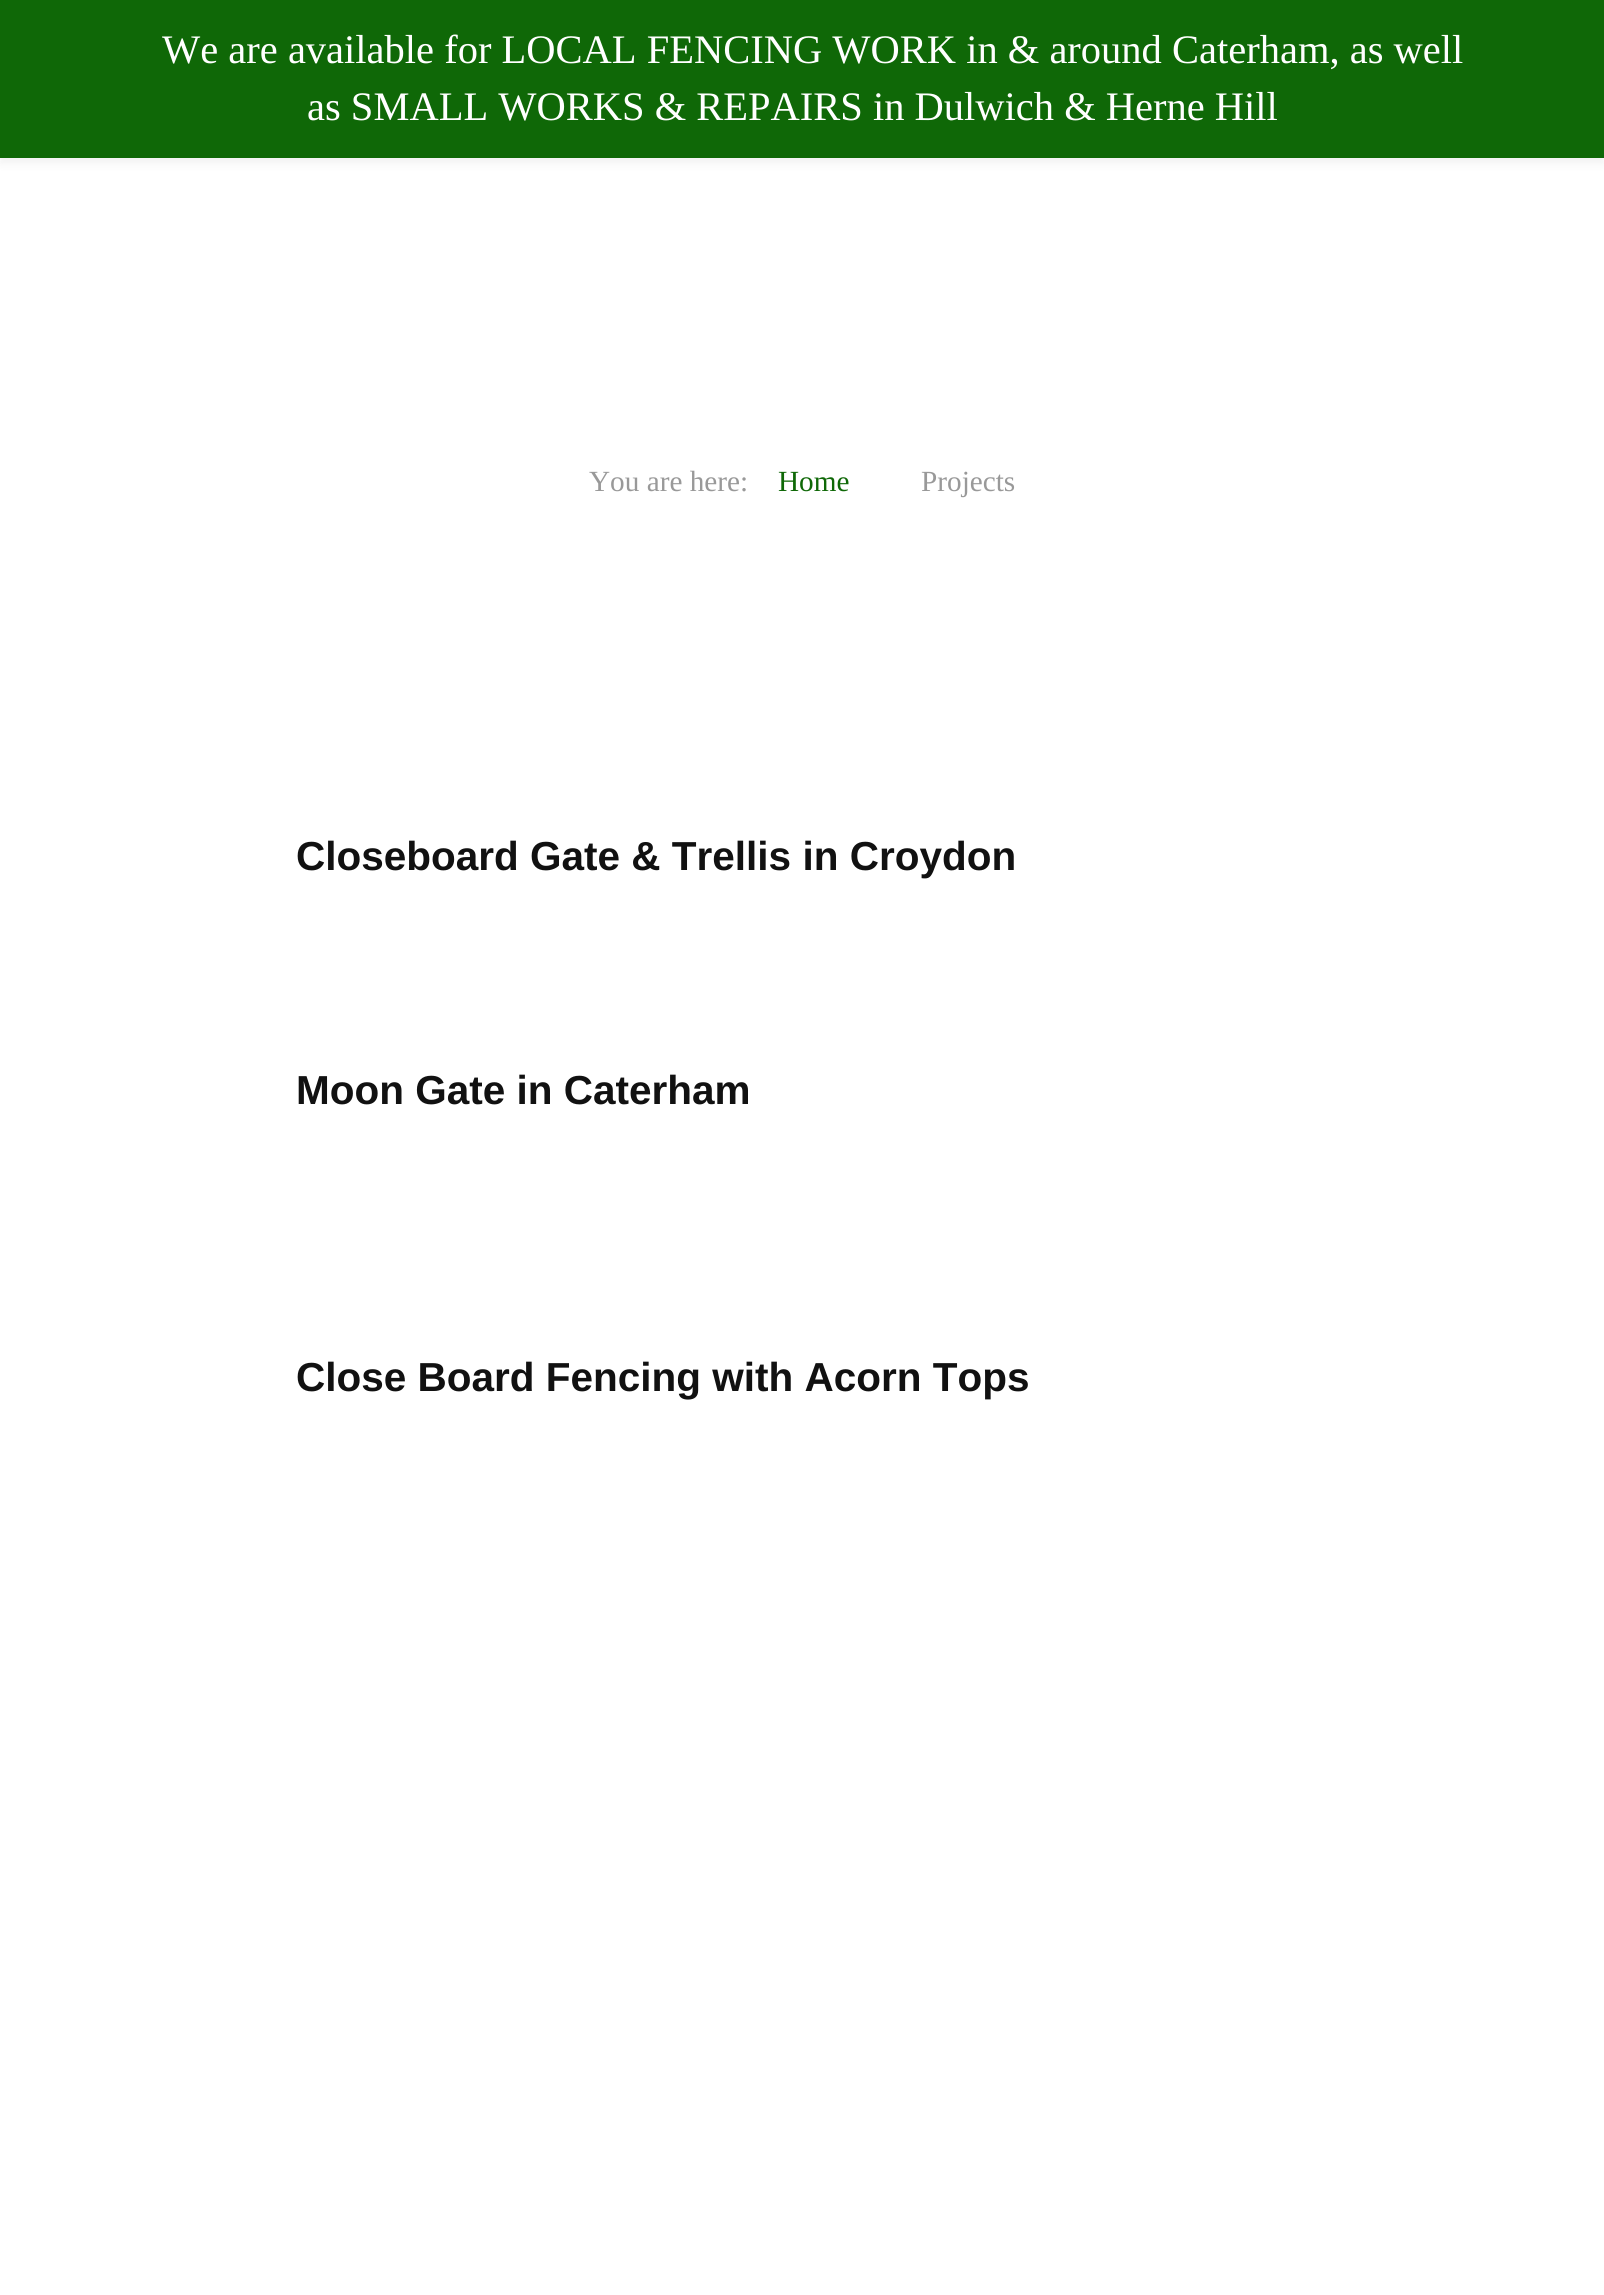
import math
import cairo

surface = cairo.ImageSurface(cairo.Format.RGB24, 1604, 2295)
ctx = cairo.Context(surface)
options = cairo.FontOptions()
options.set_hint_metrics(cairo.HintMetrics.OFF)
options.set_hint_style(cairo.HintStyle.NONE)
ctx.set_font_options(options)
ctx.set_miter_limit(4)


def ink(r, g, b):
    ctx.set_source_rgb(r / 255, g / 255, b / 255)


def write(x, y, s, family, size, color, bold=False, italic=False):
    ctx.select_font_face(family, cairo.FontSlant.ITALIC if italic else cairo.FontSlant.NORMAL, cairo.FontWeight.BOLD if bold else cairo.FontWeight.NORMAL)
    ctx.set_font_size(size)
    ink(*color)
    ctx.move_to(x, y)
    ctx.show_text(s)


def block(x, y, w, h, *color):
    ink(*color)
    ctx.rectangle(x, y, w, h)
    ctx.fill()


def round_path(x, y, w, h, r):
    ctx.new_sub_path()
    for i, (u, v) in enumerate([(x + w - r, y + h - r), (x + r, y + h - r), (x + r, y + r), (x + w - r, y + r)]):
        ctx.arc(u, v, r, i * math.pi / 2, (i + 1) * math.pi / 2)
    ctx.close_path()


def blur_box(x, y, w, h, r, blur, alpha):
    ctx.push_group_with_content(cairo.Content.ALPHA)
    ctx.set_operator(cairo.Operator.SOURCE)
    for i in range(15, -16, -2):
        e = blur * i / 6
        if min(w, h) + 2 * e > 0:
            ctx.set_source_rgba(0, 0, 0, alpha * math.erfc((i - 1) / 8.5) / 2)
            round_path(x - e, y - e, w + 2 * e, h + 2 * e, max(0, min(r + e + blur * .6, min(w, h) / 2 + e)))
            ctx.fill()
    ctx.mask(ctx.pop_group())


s1 = dict(family="Liberation Serif", size=40.5, color=(255, 255, 255))
s2 = dict(family="Liberation Serif", size=29.25, color=(153, 153, 153))
s3 = dict(family="Liberation Serif", size=29.25, color=(15, 104, 7))
s4 = dict(family="Liberation Sans", size=40.5, color=(17, 17, 17), bold=True)

ink(255, 255, 255)
ctx.paint()
ink(0, 0, 0)
blur_box(0, 7, 1604, 157, 0, 4.5, 0.05)
block(0, 0, 1604, 158, 15, 104, 7)
write(162, 63, "We are available for LOCAL FENCING WORK in & around Caterham, as well", **s1)
write(307, 120, "as SMALL WORKS & REPAIRS in Dulwich & Herne Hill", **s1)
write(589, 491, "You are here:", **s2)
write(778, 491, "Home", **s3)
write(921, 491, "Projects", **s2)
write(296, 870, "Closeboard Gate & Trellis in Croydon", **s4)
write(296, 1104, "Moon Gate in Caterham", **s4)
write(296, 1391, "Close Board Fencing with Acorn Tops", **s4)
surface.write_to_png("screenshot.png")
